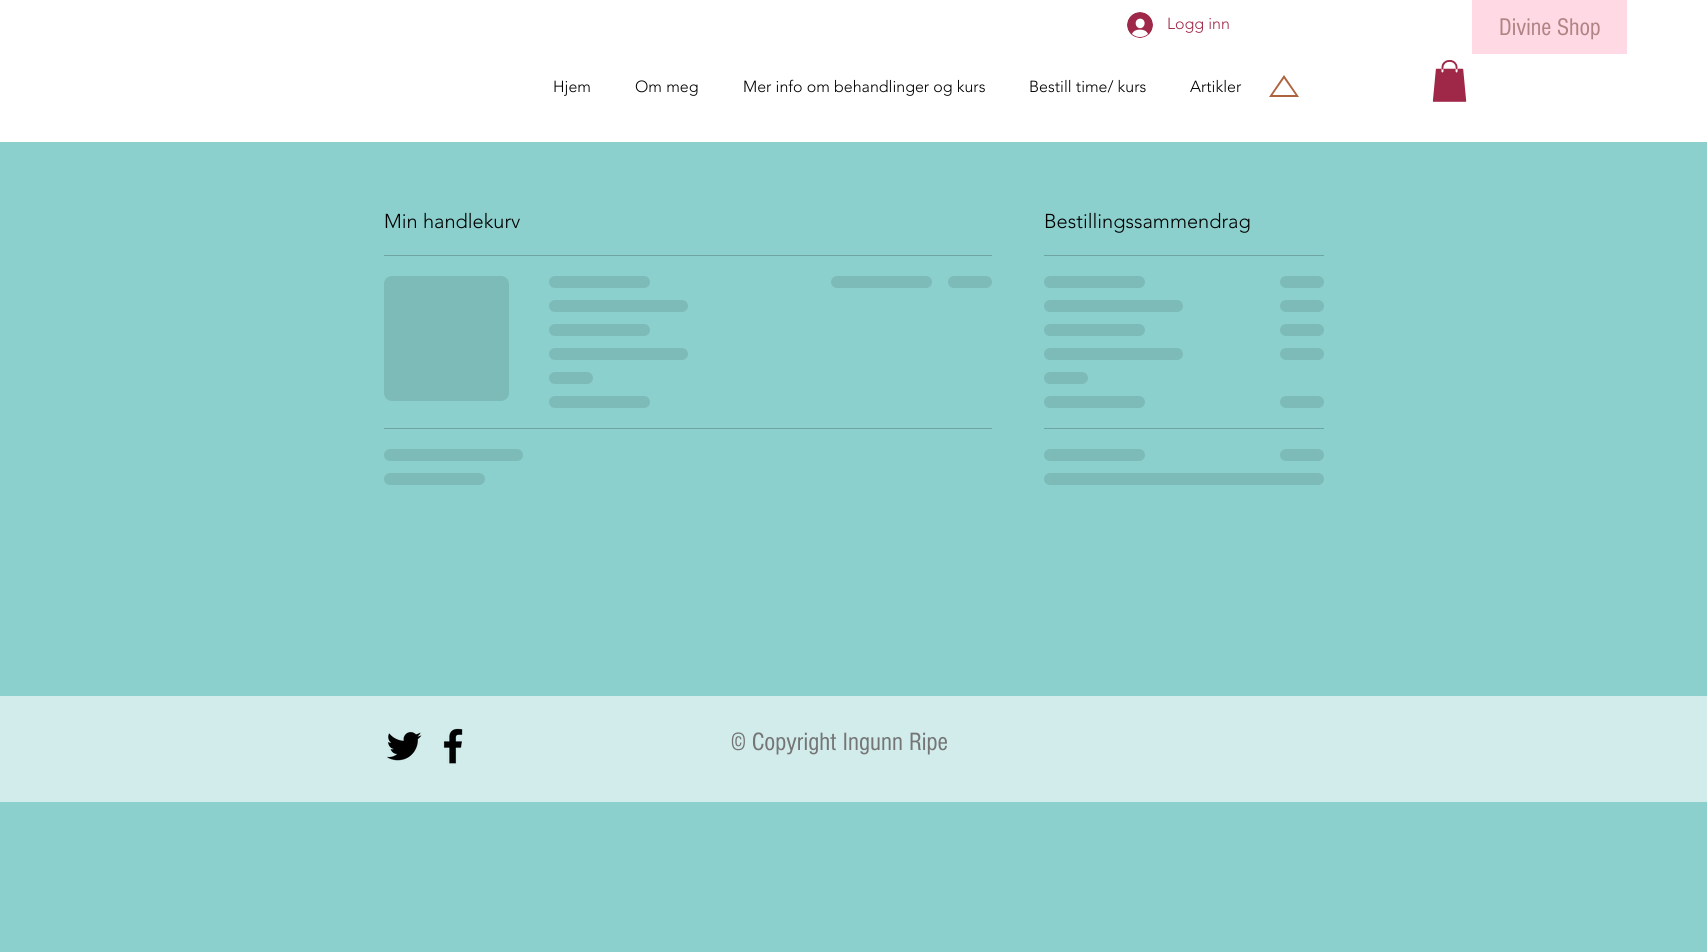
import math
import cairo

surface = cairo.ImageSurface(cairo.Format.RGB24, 1707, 952)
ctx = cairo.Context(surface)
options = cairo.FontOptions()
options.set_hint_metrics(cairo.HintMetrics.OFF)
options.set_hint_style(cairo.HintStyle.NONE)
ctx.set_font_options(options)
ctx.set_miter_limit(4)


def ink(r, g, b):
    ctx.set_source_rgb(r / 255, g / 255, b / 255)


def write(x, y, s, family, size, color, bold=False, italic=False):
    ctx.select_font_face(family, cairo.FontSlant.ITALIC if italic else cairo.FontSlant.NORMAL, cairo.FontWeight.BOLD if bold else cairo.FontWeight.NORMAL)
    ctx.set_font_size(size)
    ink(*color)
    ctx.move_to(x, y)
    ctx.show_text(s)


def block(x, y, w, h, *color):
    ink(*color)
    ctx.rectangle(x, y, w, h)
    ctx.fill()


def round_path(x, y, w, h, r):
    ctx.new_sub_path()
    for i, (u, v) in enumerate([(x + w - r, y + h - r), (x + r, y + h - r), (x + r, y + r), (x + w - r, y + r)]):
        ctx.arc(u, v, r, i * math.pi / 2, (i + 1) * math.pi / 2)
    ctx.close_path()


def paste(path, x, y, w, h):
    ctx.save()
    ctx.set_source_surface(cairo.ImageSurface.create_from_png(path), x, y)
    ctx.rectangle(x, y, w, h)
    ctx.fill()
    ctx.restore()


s1 = dict(family="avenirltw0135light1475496 Light", size=16, color=(159, 39, 71))
s2 = dict(family="avenirltw0135light1475496 Light", size=16, color=(0, 0, 0))
s3 = dict(family="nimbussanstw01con", size=25, color=(176, 132, 132))
s4 = dict(family="avenirltw0135light1475496 Light", size=20, color=(0, 0, 0))
s5 = dict(family="nimbussanstw01con", size=26, color=(117, 117, 117))

ink(139, 208, 205)
ctx.paint()
block(0, 0, 1707, 142, 255, 255, 255)
paste("pic1.png", 1127, 12, 26, 26)
write(1167, 29, "Logg inn", **s1)
write(553, 92, "Hjem", **s2)
write(635, 92, "Om meg", **s2)
write(743, 92, "Mer info om behandlinger og kurs", **s2)
write(1029, 92, "Bestill time/ kurs", **s2)
write(1190, 92, "Artikler", **s2)
ink(174, 99, 63)
ctx.new_path()
ctx.move_to(1269, 97)
ctx.line_to(1284, 75)
ctx.line_to(1299, 97)
ctx.close_path()
ctx.move_to(1295.5, 95)
ctx.line_to(1284, 78.5)
ctx.line_to(1272.5, 95)
ctx.close_path()
ctx.fill()
paste("pic2.png", 1432, 60, 35, 42)
block(1472, 0, 155, 54, 255, 217, 228)
write(1499, 35, "Divine Shop", **s3)
block(384, 255, 608, 1, 111, 166, 164)
write(384, 228, "Min handlekurv", **s4)
gradient = cairo.LinearGradient(384, 339, 884, 339)
gradient.add_color_stop_rgba(0.25, 0.49, 0.733, 0.725, 1)
gradient.add_color_stop_rgba(0.37, 0.435, 0.651, 0.643, 1)
gradient.add_color_stop_rgba(0.63, 0.49, 0.733, 0.725, 1)
ctx.set_source(gradient)
round_path(384, 276, 125, 125, 8)
ctx.fill()
gradient = cairo.LinearGradient(549, 282, 953, 282)
gradient.add_color_stop_rgba(0.25, 0.49, 0.733, 0.725, 1)
gradient.add_color_stop_rgba(0.37, 0.435, 0.651, 0.643, 1)
gradient.add_color_stop_rgba(0.63, 0.49, 0.733, 0.725, 1)
ctx.set_source(gradient)
round_path(549, 276, 101, 12, 6)
ctx.fill()
gradient = cairo.LinearGradient(549, 306, 1105, 306)
gradient.add_color_stop_rgba(0.25, 0.49, 0.733, 0.725, 1)
gradient.add_color_stop_rgba(0.37, 0.435, 0.651, 0.643, 1)
gradient.add_color_stop_rgba(0.63, 0.49, 0.733, 0.725, 1)
ctx.set_source(gradient)
round_path(549, 300, 139, 12, 6)
ctx.fill()
gradient = cairo.LinearGradient(549, 330, 953, 330)
gradient.add_color_stop_rgba(0.25, 0.49, 0.733, 0.725, 1)
gradient.add_color_stop_rgba(0.37, 0.435, 0.651, 0.643, 1)
gradient.add_color_stop_rgba(0.63, 0.49, 0.733, 0.725, 1)
ctx.set_source(gradient)
round_path(549, 324, 101, 12, 6)
ctx.fill()
gradient = cairo.LinearGradient(549, 354, 1105, 354)
gradient.add_color_stop_rgba(0.25, 0.49, 0.733, 0.725, 1)
gradient.add_color_stop_rgba(0.37, 0.435, 0.651, 0.643, 1)
gradient.add_color_stop_rgba(0.63, 0.49, 0.733, 0.725, 1)
ctx.set_source(gradient)
round_path(549, 348, 139, 12, 6)
ctx.fill()
gradient = cairo.LinearGradient(549, 378, 725, 378)
gradient.add_color_stop_rgba(0.25, 0.49, 0.733, 0.725, 1)
gradient.add_color_stop_rgba(0.37, 0.435, 0.651, 0.643, 1)
gradient.add_color_stop_rgba(0.63, 0.49, 0.733, 0.725, 1)
ctx.set_source(gradient)
round_path(549, 372, 44, 12, 6)
ctx.fill()
gradient = cairo.LinearGradient(549, 402, 953, 402)
gradient.add_color_stop_rgba(0.25, 0.49, 0.733, 0.725, 1)
gradient.add_color_stop_rgba(0.37, 0.435, 0.651, 0.643, 1)
gradient.add_color_stop_rgba(0.63, 0.49, 0.733, 0.725, 1)
ctx.set_source(gradient)
round_path(549, 396, 101, 12, 6)
ctx.fill()
gradient = cairo.LinearGradient(831, 282, 1235, 282)
gradient.add_color_stop_rgba(0.25, 0.49, 0.733, 0.725, 1)
gradient.add_color_stop_rgba(0.37, 0.435, 0.651, 0.643, 1)
gradient.add_color_stop_rgba(0.63, 0.49, 0.733, 0.725, 1)
ctx.set_source(gradient)
round_path(831, 276, 101, 12, 6)
ctx.fill()
gradient = cairo.LinearGradient(948, 282, 1124, 282)
gradient.add_color_stop_rgba(0.25, 0.49, 0.733, 0.725, 1)
gradient.add_color_stop_rgba(0.37, 0.435, 0.651, 0.643, 1)
gradient.add_color_stop_rgba(0.63, 0.49, 0.733, 0.725, 1)
ctx.set_source(gradient)
round_path(948, 276, 44, 12, 6)
ctx.fill()
block(384, 428, 608, 1, 111, 166, 164)
gradient = cairo.LinearGradient(384, 455, 940, 455)
gradient.add_color_stop_rgba(0.25, 0.49, 0.733, 0.725, 1)
gradient.add_color_stop_rgba(0.37, 0.435, 0.651, 0.643, 1)
gradient.add_color_stop_rgba(0.63, 0.49, 0.733, 0.725, 1)
ctx.set_source(gradient)
round_path(384, 449, 139, 12, 6)
ctx.fill()
gradient = cairo.LinearGradient(384, 479, 788, 479)
gradient.add_color_stop_rgba(0.25, 0.49, 0.733, 0.725, 1)
gradient.add_color_stop_rgba(0.37, 0.435, 0.651, 0.643, 1)
gradient.add_color_stop_rgba(0.63, 0.49, 0.733, 0.725, 1)
ctx.set_source(gradient)
round_path(384, 473, 101, 12, 6)
ctx.fill()
block(1044, 255, 280, 1, 111, 166, 164)
write(1044, 228, "Bestillingssammendrag", **s4)
gradient = cairo.LinearGradient(1044, 282, 1448, 282)
gradient.add_color_stop_rgba(0.25, 0.49, 0.733, 0.725, 1)
gradient.add_color_stop_rgba(0.37, 0.435, 0.651, 0.643, 1)
gradient.add_color_stop_rgba(0.63, 0.49, 0.733, 0.725, 1)
ctx.set_source(gradient)
round_path(1044, 276, 101, 12, 6)
ctx.fill()
gradient = cairo.LinearGradient(1280, 282, 1456, 282)
gradient.add_color_stop_rgba(0.25, 0.49, 0.733, 0.725, 1)
gradient.add_color_stop_rgba(0.37, 0.435, 0.651, 0.643, 1)
gradient.add_color_stop_rgba(0.63, 0.49, 0.733, 0.725, 1)
ctx.set_source(gradient)
round_path(1280, 276, 44, 12, 6)
ctx.fill()
gradient = cairo.LinearGradient(1044, 306, 1600, 306)
gradient.add_color_stop_rgba(0.25, 0.49, 0.733, 0.725, 1)
gradient.add_color_stop_rgba(0.37, 0.435, 0.651, 0.643, 1)
gradient.add_color_stop_rgba(0.63, 0.49, 0.733, 0.725, 1)
ctx.set_source(gradient)
round_path(1044, 300, 139, 12, 6)
ctx.fill()
gradient = cairo.LinearGradient(1280, 306, 1456, 306)
gradient.add_color_stop_rgba(0.25, 0.49, 0.733, 0.725, 1)
gradient.add_color_stop_rgba(0.37, 0.435, 0.651, 0.643, 1)
gradient.add_color_stop_rgba(0.63, 0.49, 0.733, 0.725, 1)
ctx.set_source(gradient)
round_path(1280, 300, 44, 12, 6)
ctx.fill()
gradient = cairo.LinearGradient(1044, 330, 1448, 330)
gradient.add_color_stop_rgba(0.25, 0.49, 0.733, 0.725, 1)
gradient.add_color_stop_rgba(0.37, 0.435, 0.651, 0.643, 1)
gradient.add_color_stop_rgba(0.63, 0.49, 0.733, 0.725, 1)
ctx.set_source(gradient)
round_path(1044, 324, 101, 12, 6)
ctx.fill()
gradient = cairo.LinearGradient(1280, 330, 1456, 330)
gradient.add_color_stop_rgba(0.25, 0.49, 0.733, 0.725, 1)
gradient.add_color_stop_rgba(0.37, 0.435, 0.651, 0.643, 1)
gradient.add_color_stop_rgba(0.63, 0.49, 0.733, 0.725, 1)
ctx.set_source(gradient)
round_path(1280, 324, 44, 12, 6)
ctx.fill()
gradient = cairo.LinearGradient(1044, 354, 1600, 354)
gradient.add_color_stop_rgba(0.25, 0.49, 0.733, 0.725, 1)
gradient.add_color_stop_rgba(0.37, 0.435, 0.651, 0.643, 1)
gradient.add_color_stop_rgba(0.63, 0.49, 0.733, 0.725, 1)
ctx.set_source(gradient)
round_path(1044, 348, 139, 12, 6)
ctx.fill()
gradient = cairo.LinearGradient(1280, 354, 1456, 354)
gradient.add_color_stop_rgba(0.25, 0.49, 0.733, 0.725, 1)
gradient.add_color_stop_rgba(0.37, 0.435, 0.651, 0.643, 1)
gradient.add_color_stop_rgba(0.63, 0.49, 0.733, 0.725, 1)
ctx.set_source(gradient)
round_path(1280, 348, 44, 12, 6)
ctx.fill()
gradient = cairo.LinearGradient(1044, 378, 1220, 378)
gradient.add_color_stop_rgba(0.25, 0.49, 0.733, 0.725, 1)
gradient.add_color_stop_rgba(0.37, 0.435, 0.651, 0.643, 1)
gradient.add_color_stop_rgba(0.63, 0.49, 0.733, 0.725, 1)
ctx.set_source(gradient)
round_path(1044, 372, 44, 12, 6)
ctx.fill()
gradient = cairo.LinearGradient(1044, 402, 1448, 402)
gradient.add_color_stop_rgba(0.25, 0.49, 0.733, 0.725, 1)
gradient.add_color_stop_rgba(0.37, 0.435, 0.651, 0.643, 1)
gradient.add_color_stop_rgba(0.63, 0.49, 0.733, 0.725, 1)
ctx.set_source(gradient)
round_path(1044, 396, 101, 12, 6)
ctx.fill()
gradient = cairo.LinearGradient(1280, 402, 1456, 402)
gradient.add_color_stop_rgba(0.25, 0.49, 0.733, 0.725, 1)
gradient.add_color_stop_rgba(0.37, 0.435, 0.651, 0.643, 1)
gradient.add_color_stop_rgba(0.63, 0.49, 0.733, 0.725, 1)
ctx.set_source(gradient)
round_path(1280, 396, 44, 12, 6)
ctx.fill()
block(1044, 428, 280, 1, 111, 166, 164)
gradient = cairo.LinearGradient(1044, 455, 1448, 455)
gradient.add_color_stop_rgba(0.25, 0.49, 0.733, 0.725, 1)
gradient.add_color_stop_rgba(0.37, 0.435, 0.651, 0.643, 1)
gradient.add_color_stop_rgba(0.63, 0.49, 0.733, 0.725, 1)
ctx.set_source(gradient)
round_path(1044, 449, 101, 12, 6)
ctx.fill()
gradient = cairo.LinearGradient(1280, 455, 1456, 455)
gradient.add_color_stop_rgba(0.25, 0.49, 0.733, 0.725, 1)
gradient.add_color_stop_rgba(0.37, 0.435, 0.651, 0.643, 1)
gradient.add_color_stop_rgba(0.63, 0.49, 0.733, 0.725, 1)
ctx.set_source(gradient)
round_path(1280, 449, 44, 12, 6)
ctx.fill()
gradient = cairo.LinearGradient(1044, 479, 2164, 479)
gradient.add_color_stop_rgba(0.25, 0.49, 0.733, 0.725, 1)
gradient.add_color_stop_rgba(0.37, 0.435, 0.651, 0.643, 1)
gradient.add_color_stop_rgba(0.63, 0.49, 0.733, 0.725, 1)
ctx.set_source(gradient)
round_path(1044, 473, 280, 12, 6)
ctx.fill()
block(0, 696, 1707, 106, 209, 236, 235)
paste("pic3.png", 387, 731, 35, 30)
paste("pic4.png", 443, 728, 20, 36)
write(731, 750, "© Copyright Ingunn Ripe", **s5)
surface.write_to_png("screenshot.png")
